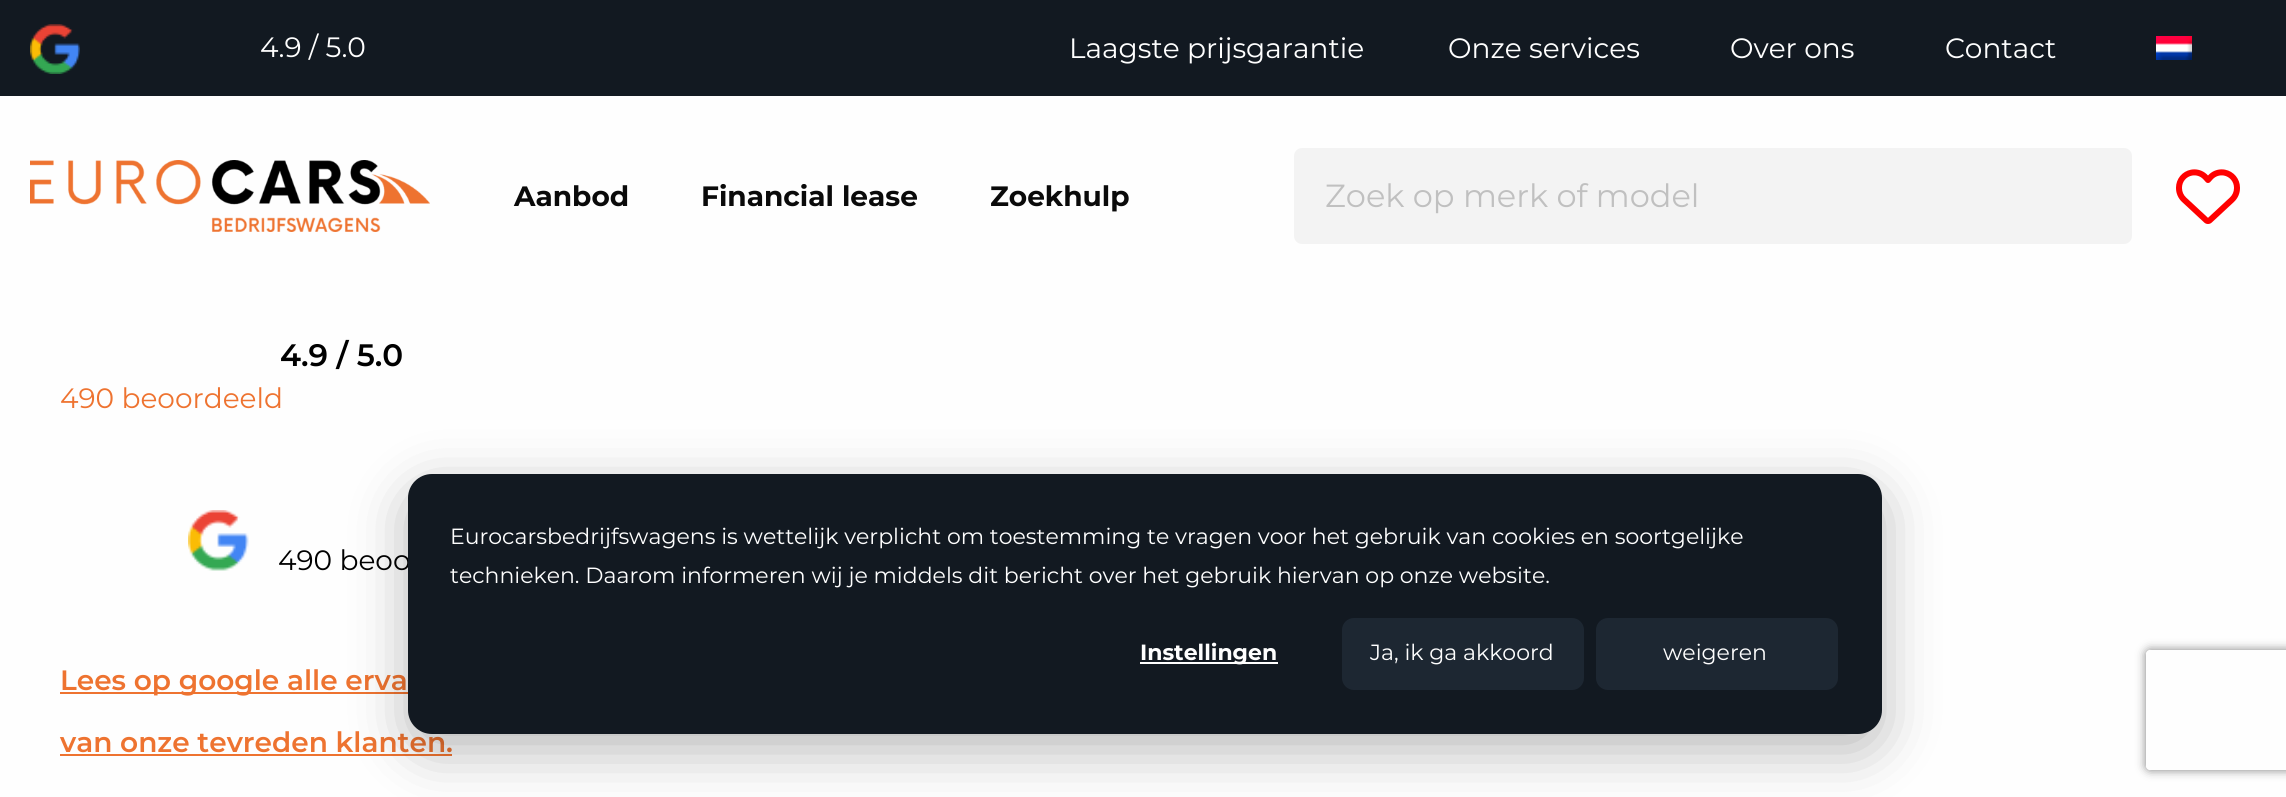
import math
import cairo

surface = cairo.ImageSurface(cairo.Format.RGB24, 2286, 797)
ctx = cairo.Context(surface)
options = cairo.FontOptions()
options.set_hint_metrics(cairo.HintMetrics.OFF)
options.set_hint_style(cairo.HintStyle.NONE)
ctx.set_font_options(options)
ctx.set_miter_limit(4)


def ink(r, g, b):
    ctx.set_source_rgb(r / 255, g / 255, b / 255)


def write(x, y, s, family, size, color, bold=False, italic=False):
    ctx.select_font_face(family, cairo.FontSlant.ITALIC if italic else cairo.FontSlant.NORMAL, cairo.FontWeight.BOLD if bold else cairo.FontWeight.NORMAL)
    ctx.set_font_size(size)
    ink(*color)
    ctx.move_to(x, y)
    ctx.show_text(s)


def block(x, y, w, h, *color):
    ink(*color)
    ctx.rectangle(x, y, w, h)
    ctx.fill()


def round_path(x, y, w, h, r):
    ctx.new_sub_path()
    for i, (u, v) in enumerate([(x + w - r, y + h - r), (x + r, y + h - r), (x + r, y + r), (x + w - r, y + r)]):
        ctx.arc(u, v, r, i * math.pi / 2, (i + 1) * math.pi / 2)
    ctx.close_path()


def blur_box(x, y, w, h, r, blur, alpha):
    ctx.push_group_with_content(cairo.Content.ALPHA)
    ctx.set_operator(cairo.Operator.SOURCE)
    for i in range(15, -16, -2):
        e = blur * i / 6
        if min(w, h) + 2 * e > 0:
            ctx.set_source_rgba(0, 0, 0, alpha * math.erfc((i - 1) / 8.5) / 2)
            round_path(x - e, y - e, w + 2 * e, h + 2 * e, max(0, min(r + e + blur * .6, min(w, h) / 2 + e)))
            ctx.fill()
    ctx.mask(ctx.pop_group())


def paste(path, x, y, w, h):
    ctx.save()
    ctx.set_source_surface(cairo.ImageSurface.create_from_png(path), x, y)
    ctx.rectangle(x, y, w, h)
    ctx.fill()
    ctx.restore()


s1 = dict(family="Montserrat", size=28, color=(254, 254, 254))
s2 = dict(family="Montserrat", size=28, color=(10, 10, 10), bold=True)
s3 = dict(family="Montserrat", size=32, color=(192, 192, 192))
s4 = dict(family="Montserrat SemiBold", size=31, color=(0, 0, 0))
s5 = dict(family="Montserrat", size=28, color=(238, 115, 48))
s6 = dict(family="Montserrat", size=28, color=(0, 0, 0))
s7 = dict(family="Montserrat SemiBold", size=28, color=(238, 115, 48))
s8 = dict(family="Montserrat", size=22, color=(254, 254, 254))
s9 = dict(family="Montserrat", size=22, color=(254, 254, 254), bold=True)

ink(254, 254, 254)
ctx.paint()
block(0, 0, 2286, 96, 18, 25, 33)
paste("pic1.png", 30, 24, 50, 50)
write(260, 57, "4.9 / 5.0", **s1)
write(1069, 58, "Laagste prijsgarantie", **s1)
write(1448, 58, "Onze services", **s1)
write(1730, 58, "Over ons", **s1)
write(1945, 58, "Contact", **s1)
paste("pic2.png", 2156, 36, 36, 24)
paste("pic3.png", 30, 160, 400, 72)
write(514, 206, "Aanbod", **s2)
write(701, 206, "Financial lease", **s2)
write(990, 206, "Zoekhulp", **s2)
ink(243, 243, 243)
round_path(1294, 148, 838, 96, 8)
ctx.fill()
write(1325, 207, "Zoek op merk of model", **s3)
paste("pic4.png", 2176, 169, 64, 55)
write(280, 366, "4.9 / 5.0", **s4)
write(60, 408, "490 beoordeeld", **s5)
paste("pic5.png", 188, 510, 61, 61)
write(278, 570, "490 beoo", **s6)
block(60, 692, 348, 2, 238, 115, 48)
write(60, 690, "Lees op google alle erva", **s7)
write(60, 752, "van onze tevreden klanten.", **s7)
block(60, 754, 392, 2, 238, 115, 48)
ink(0, 0, 0)
blur_box(408, 490, 1474, 260, 24, 28, 0.28)
ink(18, 25, 33)
round_path(408, 474, 1474, 260, 24)
ctx.fill()
write(450, 544, "Eurocarsbedrijfswagens is wettelijk verplicht om toestemming te vragen voor het gebruik van cookies en soortgelijke", **s8)
write(450, 583, "technieken. Daarom informeren wij je middels dit bericht over het gebruik hiervan op onze website.", **s8)
block(1140, 662, 138, 2, 255, 255, 255)
write(1140, 660, "Instellingen", **s9)
ink(29, 39, 50)
round_path(1343, 619, 240, 70, 11)
ctx.fill_preserve()
ctx.stroke()
write(1370, 660, "Ja, ik ga akkoord", **s8)
ink(29, 39, 50)
round_path(1597, 619, 240, 70, 11)
ctx.fill_preserve()
ctx.stroke()
write(1663, 660, "weigeren", **s8)
ctx.save()
ctx.set_fill_rule(cairo.FillRule.EVEN_ODD)
ctx.new_path()
ctx.move_to(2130, 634)
ctx.line_to(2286, 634)
ctx.line_to(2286, 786)
ctx.line_to(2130, 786)
ctx.close_path()
ctx.move_to(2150, 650)
ctx.line_to(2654, 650)
ctx.curve_to(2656, 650, 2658, 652, 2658, 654)
ctx.line_to(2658, 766)
ctx.curve_to(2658, 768, 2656, 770, 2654, 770)
ctx.line_to(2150, 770)
ctx.curve_to(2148, 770, 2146, 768, 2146, 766)
ctx.line_to(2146, 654)
ctx.curve_to(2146, 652, 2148, 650, 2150, 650)
ctx.close_path()
ctx.clip()
ink(128, 128, 128)
blur_box(2146, 650, 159, 120, 4, 5, 1)
ctx.restore()
surface.write_to_png("screenshot.png")
